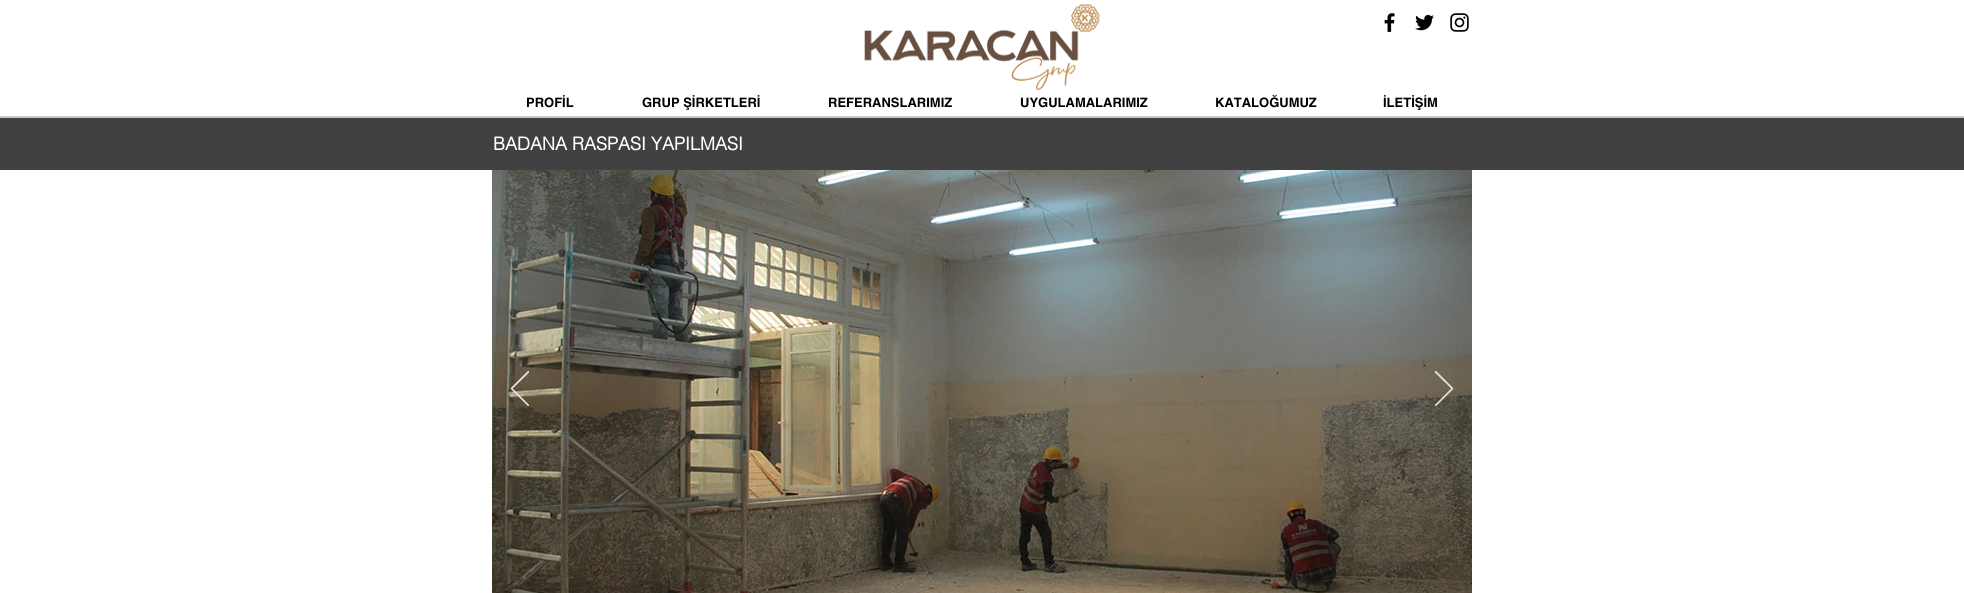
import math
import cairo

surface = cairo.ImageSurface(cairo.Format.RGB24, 1964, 593)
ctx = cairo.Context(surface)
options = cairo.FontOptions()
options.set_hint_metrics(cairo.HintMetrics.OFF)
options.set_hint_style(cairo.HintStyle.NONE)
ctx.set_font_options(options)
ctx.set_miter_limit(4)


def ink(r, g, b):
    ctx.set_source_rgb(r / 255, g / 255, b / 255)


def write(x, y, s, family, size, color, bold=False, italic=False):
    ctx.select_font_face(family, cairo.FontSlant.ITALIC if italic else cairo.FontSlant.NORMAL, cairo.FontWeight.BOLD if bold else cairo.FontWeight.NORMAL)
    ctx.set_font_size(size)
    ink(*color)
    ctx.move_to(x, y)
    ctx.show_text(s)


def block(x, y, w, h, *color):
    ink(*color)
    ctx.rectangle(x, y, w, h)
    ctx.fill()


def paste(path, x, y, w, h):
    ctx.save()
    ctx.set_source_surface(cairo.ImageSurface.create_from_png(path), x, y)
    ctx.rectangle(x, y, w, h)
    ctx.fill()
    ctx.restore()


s1 = dict(family="helvetica", size=13, color=(0, 0, 0), bold=True)
s2 = dict(family="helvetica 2", size=18, color=(255, 255, 255), bold=True)

ink(255, 255, 255)
ctx.paint()
paste("pic1.png", 864, 4, 236, 86)
paste("pic2.png", 1384, 13, 11, 20)
paste("pic3.png", 1415, 14, 19, 17)
paste("pic4.png", 1450, 13, 19, 19)
write(526, 107, "PROFİL", **s1)
write(642, 107, "GRUP ŞİRKETLERİ", **s1)
write(828, 107, "REFERANSLARIMIZ", **s1)
write(1020, 107, "UYGULAMALARIMIZ", **s1)
write(1215, 107, "KATALOĞUMUZ", **s1)
write(1383, 107, "İLETİŞİM", **s1)
block(0, 116, 1964, 2, 199, 199, 199)
block(0, 118, 1964, 52, 65, 65, 65)
write(493, 150, "BADANA RASPASI YAPILMASI", **s2)
paste("pic5.png", 492, 170, 980, 423)
ctx.save()
ctx.rectangle(511, 371, 18, 35)
ctx.clip()
ctx.new_path()
ctx.move_to(528.5, 406)
ctx.line_to(511, 388.5)
ctx.line_to(528.5, 371)
ctx.line_to(529, 372)
ctx.line_to(512, 388.5)
ctx.line_to(529, 405.5)
ctx.close_path()
ink(232, 230, 230)
ctx.set_line_width(0.9)
ctx.stroke()
ctx.restore()
ctx.save()
ctx.rectangle(1435, 371, 18, 35)
ctx.clip()
ctx.new_path()
ctx.move_to(1435.5, 406)
ctx.line_to(1453, 388.5)
ctx.line_to(1435.5, 371)
ctx.line_to(1435, 372)
ctx.line_to(1452, 388.5)
ctx.line_to(1435, 405.5)
ctx.close_path()
ink(232, 230, 230)
ctx.set_line_width(0.9)
ctx.stroke()
ctx.restore()
surface.write_to_png("screenshot.png")
